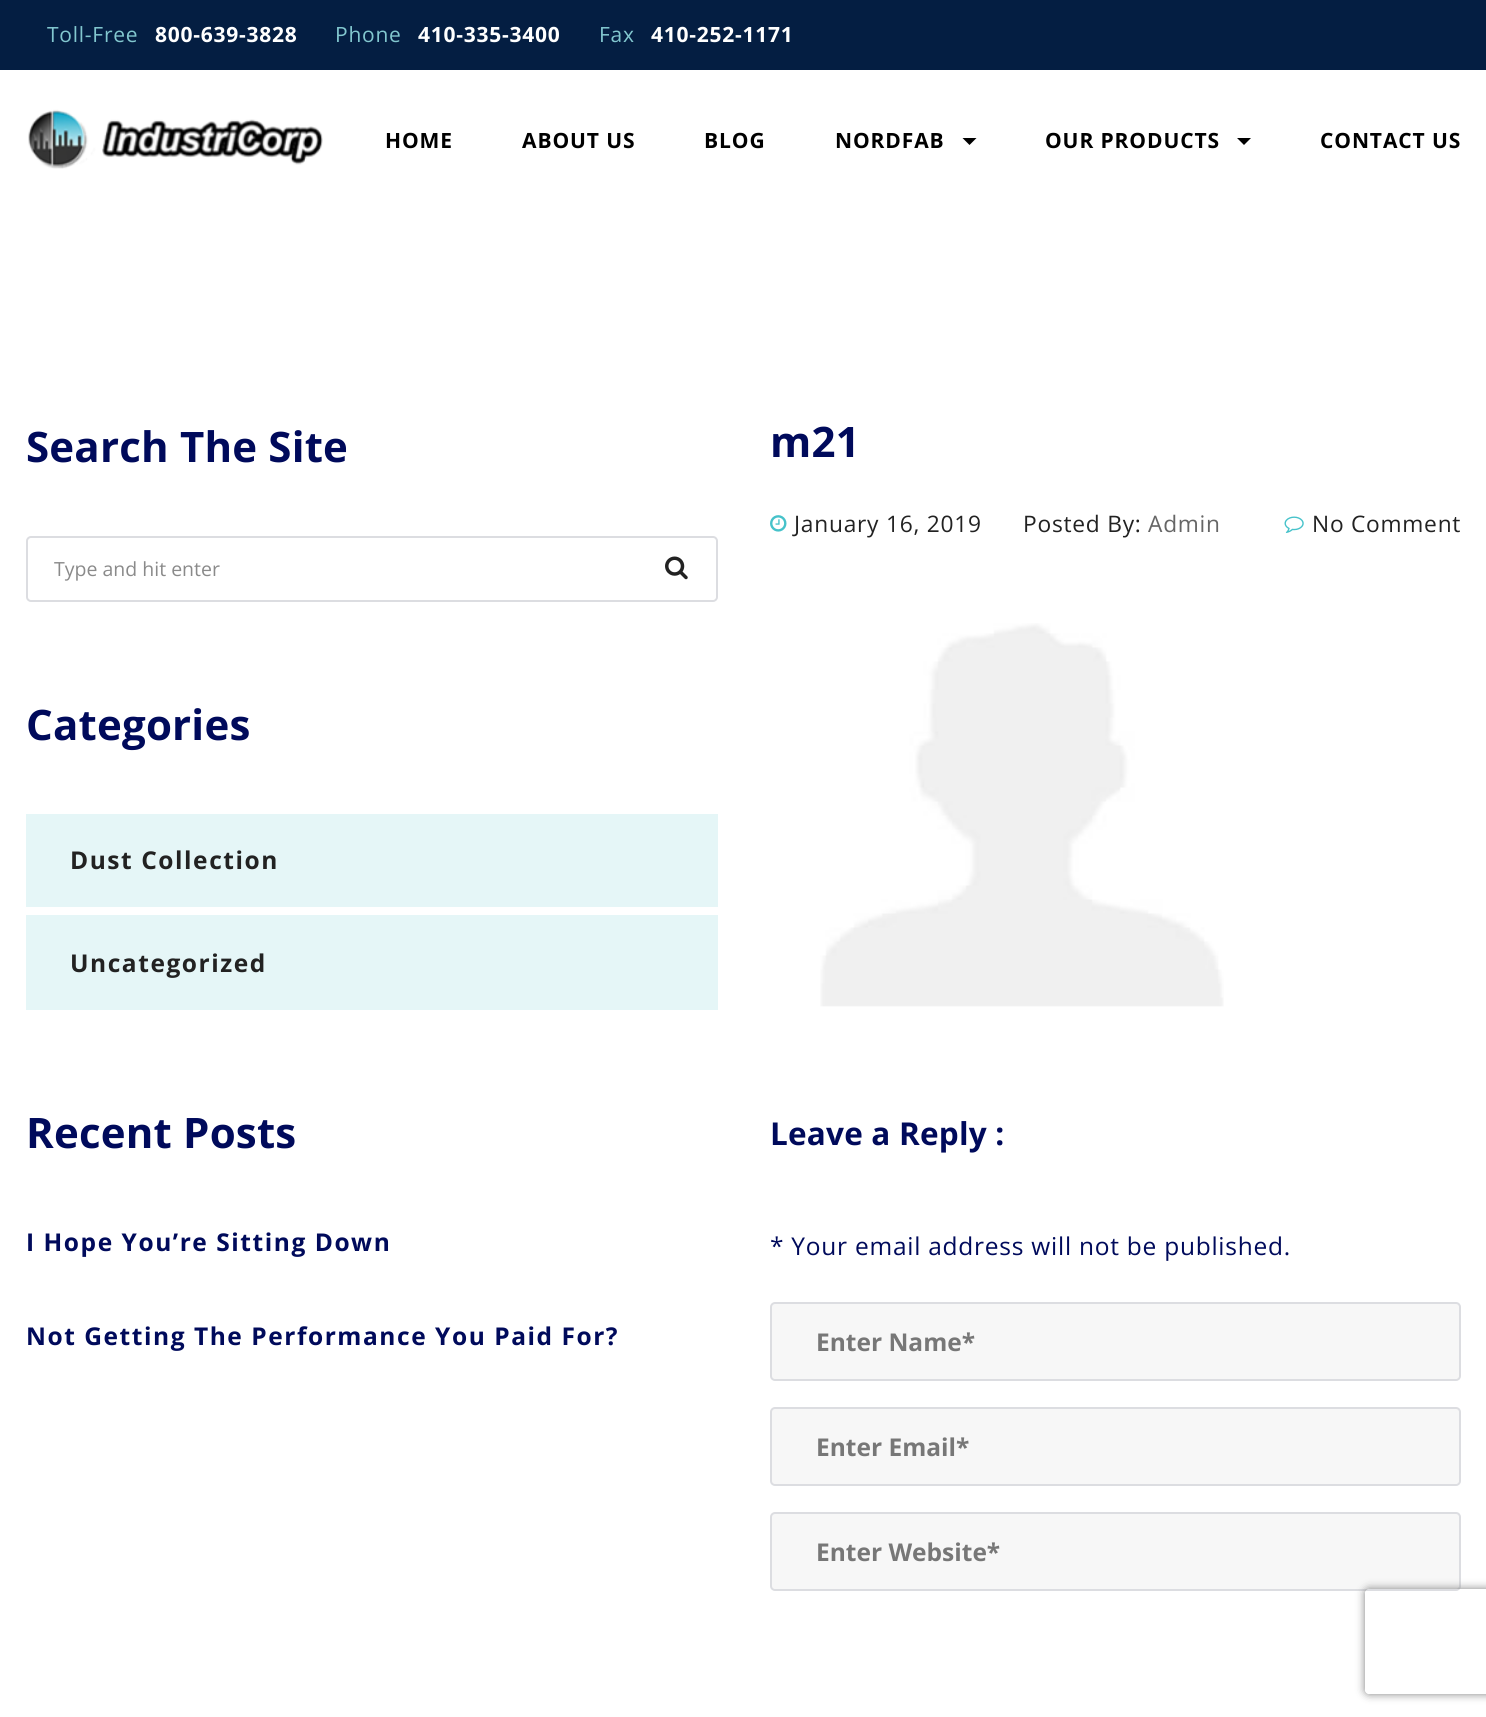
import math
import cairo

surface = cairo.ImageSurface(cairo.Format.RGB24, 1486, 1717)
ctx = cairo.Context(surface)
options = cairo.FontOptions()
options.set_hint_metrics(cairo.HintMetrics.OFF)
options.set_hint_style(cairo.HintStyle.NONE)
ctx.set_font_options(options)
ctx.set_miter_limit(4)


def ink(r, g, b):
    ctx.set_source_rgb(r / 255, g / 255, b / 255)


def write(x, y, s, family, size, color, bold=False, italic=False):
    ctx.select_font_face(family, cairo.FontSlant.ITALIC if italic else cairo.FontSlant.NORMAL, cairo.FontWeight.BOLD if bold else cairo.FontWeight.NORMAL)
    ctx.set_font_size(size)
    ink(*color)
    ctx.move_to(x, y)
    ctx.show_text(s)


def write_spaced(x, y, s, letter, word):
    ctx.move_to(x, y)
    for ch in s:
        ctx.show_text(ch)
        ctx.rel_move_to(letter + word * (ch == ' '), 0)


def block(x, y, w, h, *color):
    ink(*color)
    ctx.rectangle(x, y, w, h)
    ctx.fill()


def round_path(x, y, w, h, r):
    ctx.new_sub_path()
    for i, (u, v) in enumerate([(x + w - r, y + h - r), (x + r, y + h - r), (x + r, y + r), (x + w - r, y + r)]):
        ctx.arc(u, v, r, i * math.pi / 2, (i + 1) * math.pi / 2)
    ctx.close_path()


def blur_box(x, y, w, h, r, blur, alpha):
    ctx.push_group_with_content(cairo.Content.ALPHA)
    ctx.set_operator(cairo.Operator.SOURCE)
    for i in range(15, -16, -2):
        e = blur * i / 6
        if min(w, h) + 2 * e > 0:
            ctx.set_source_rgba(0, 0, 0, alpha * math.erfc((i - 1) / 8.5) / 2)
            round_path(x - e, y - e, w + 2 * e, h + 2 * e, max(0, min(r + e + blur * .6, min(w, h) / 2 + e)))
            ctx.fill()
    ctx.mask(ctx.pop_group())


def paste(path, x, y, w, h):
    ctx.save()
    ctx.set_source_surface(cairo.ImageSurface.create_from_png(path), x, y)
    ctx.rectangle(x, y, w, h)
    ctx.fill()
    ctx.restore()


s1 = dict(family="Open Sans", size=19.5, color=(138, 138, 138))
s2 = dict(family="Open Sans", size=24.5, color=(119, 119, 119), bold=True)

ink(255, 255, 255)
ctx.paint()
block(0, 0, 1486, 70, 4, 30, 66)
ctx.select_font_face("Open Sans")
ctx.set_font_size(21)
ink(130, 199, 207)
write_spaced(47, 42, "Toll-Free", 0.75, 0)
ctx.select_font_face("Open Sans", cairo.FontSlant.NORMAL, cairo.FontWeight.BOLD)
ink(255, 255, 255)
write_spaced(155, 42, "800-639-3828", 0.75, 0)
ctx.select_font_face("Open Sans")
ink(130, 199, 207)
write_spaced(335, 42, "Phone", 0.75, 0)
ctx.select_font_face("Open Sans", cairo.FontSlant.NORMAL, cairo.FontWeight.BOLD)
ink(255, 255, 255)
write_spaced(418, 42, "410-335-3400", 0.75, 0)
ctx.select_font_face("Open Sans")
ink(130, 199, 207)
write_spaced(599, 42, "Fax", 0.75, 0)
ctx.select_font_face("Open Sans", cairo.FontSlant.NORMAL, cairo.FontWeight.BOLD)
ink(255, 255, 255)
write_spaced(651, 42, "410-252-1171", 0.75, 0)
paste("pic1.png", 28, 109, 295, 60)
ink(0, 0, 0)
write_spaced(385, 148, "HOME", 0.9, 0)
write_spaced(522, 148, "ABOUT US", 0.9, 0)
write_spaced(704, 148, "BLOG", 0.9, 0)
write_spaced(835, 148, "NORDFAB", 0.9, 0)
ctx.new_path()
ctx.move_to(962.5, 138)
ctx.line_to(976.5, 138)
ctx.line_to(969.5, 145)
ctx.close_path()
ctx.fill()
write_spaced(1045, 148, "OUR PRODUCTS", 0.9, 0)
ctx.new_path()
ctx.move_to(1237, 138)
ctx.line_to(1251, 138)
ctx.line_to(1244, 145)
ctx.close_path()
ctx.fill()
write_spaced(1320, 148, "CONTACT US", 0.9, 0)
ctx.set_font_size(42)
ink(0, 10, 91)
write_spaced(26, 462, "Search The Site", 0.2, 0)
round_path(27, 537, 690, 64, 4)
ink(220, 221, 225)
ctx.stroke()
write(54, 576, "Type and hit enter", **s1)
paste("pic2.png", 665, 556, 23, 24)
ctx.select_font_face("Open Sans", cairo.FontSlant.NORMAL, cairo.FontWeight.BOLD)
ctx.set_font_size(42)
ink(0, 10, 91)
write_spaced(26, 740, "Categories", 0.2, 0)
block(26, 814, 692, 93, 229, 246, 247)
ctx.set_font_size(24.5)
ink(34, 34, 34)
write_spaced(70, 869, "Dust Collection", 1.55, 0)
block(26, 915, 692, 95, 229, 246, 247)
ink(34, 34, 34)
write_spaced(70, 972, "Uncategorized", 1.55, 0)
ctx.set_font_size(42)
ink(0, 10, 91)
write_spaced(26, 1148, "Recent Posts", 0.2, 0)
ctx.set_font_size(24.5)
write_spaced(26, 1251, "I Hope You’re Sitting Down", 1.55, 0)
write_spaced(26, 1345, "Not Getting The Performance You Paid For?", 1.55, 0)
ctx.set_font_size(42)
write_spaced(770, 457, "m21", 0.2, 0)
paste("pic3.png", 770, 515, 17, 17)
ctx.select_font_face("Open Sans")
ctx.set_font_size(22.75)
ink(34, 34, 34)
write_spaced(794, 532, "January 16, 2019", 0.75, 0)
write_spaced(1023, 532, "Posted By:", 0.75, 0)
ink(102, 102, 102)
write_spaced(1148, 532, "Admin", 0.75, 0)
paste("pic4.png", 1284, 516, 20, 17)
ink(34, 34, 34)
write_spaced(1312, 532, "No Comment", 0.75, 0)
paste("pic5.png", 820, 623, 404, 384)
ctx.select_font_face("Open Sans", cairo.FontSlant.NORMAL, cairo.FontWeight.BOLD)
ctx.set_font_size(31.5)
ink(0, 10, 91)
write_spaced(770, 1145, "Leave a Reply :", 0.2, 0)
ctx.select_font_face("Open Sans")
ctx.set_font_size(24.5)
write_spaced(770, 1255, "* Your email address will not be published.", 0.75, 0)
ink(247, 247, 247)
round_path(771, 1303, 689, 77, 4)
ctx.fill_preserve()
ink(220, 221, 225)
ctx.stroke()
write(816, 1351, "Enter Name*", **s2)
ink(247, 247, 247)
round_path(771, 1408, 689, 77, 4)
ctx.fill_preserve()
ink(220, 221, 225)
ctx.stroke()
write(816, 1456, "Enter Email*", **s2)
ink(247, 247, 247)
round_path(771, 1513, 689, 77, 4)
ctx.fill_preserve()
ink(220, 221, 225)
ctx.stroke()
write(816, 1561, "Enter Website*", **s2)
ctx.save()
ctx.set_fill_rule(cairo.FillRule.EVEN_ODD)
ctx.new_path()
ctx.move_to(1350, 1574)
ctx.line_to(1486, 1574)
ctx.line_to(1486, 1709)
ctx.line_to(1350, 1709)
ctx.close_path()
ctx.move_to(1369, 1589)
ctx.line_to(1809, 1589)
ctx.curve_to(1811, 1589, 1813, 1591, 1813, 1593)
ctx.line_to(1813, 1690)
ctx.curve_to(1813, 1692, 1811, 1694, 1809, 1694)
ctx.line_to(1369, 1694)
ctx.curve_to(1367, 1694, 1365, 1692, 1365, 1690)
ctx.line_to(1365, 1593)
ctx.curve_to(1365, 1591, 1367, 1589, 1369, 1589)
ctx.close_path()
ctx.clip()
ink(128, 128, 128)
blur_box(1365, 1589, 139, 105, 4, 4.5, 1)
ctx.restore()
surface.write_to_png("screenshot.png")
